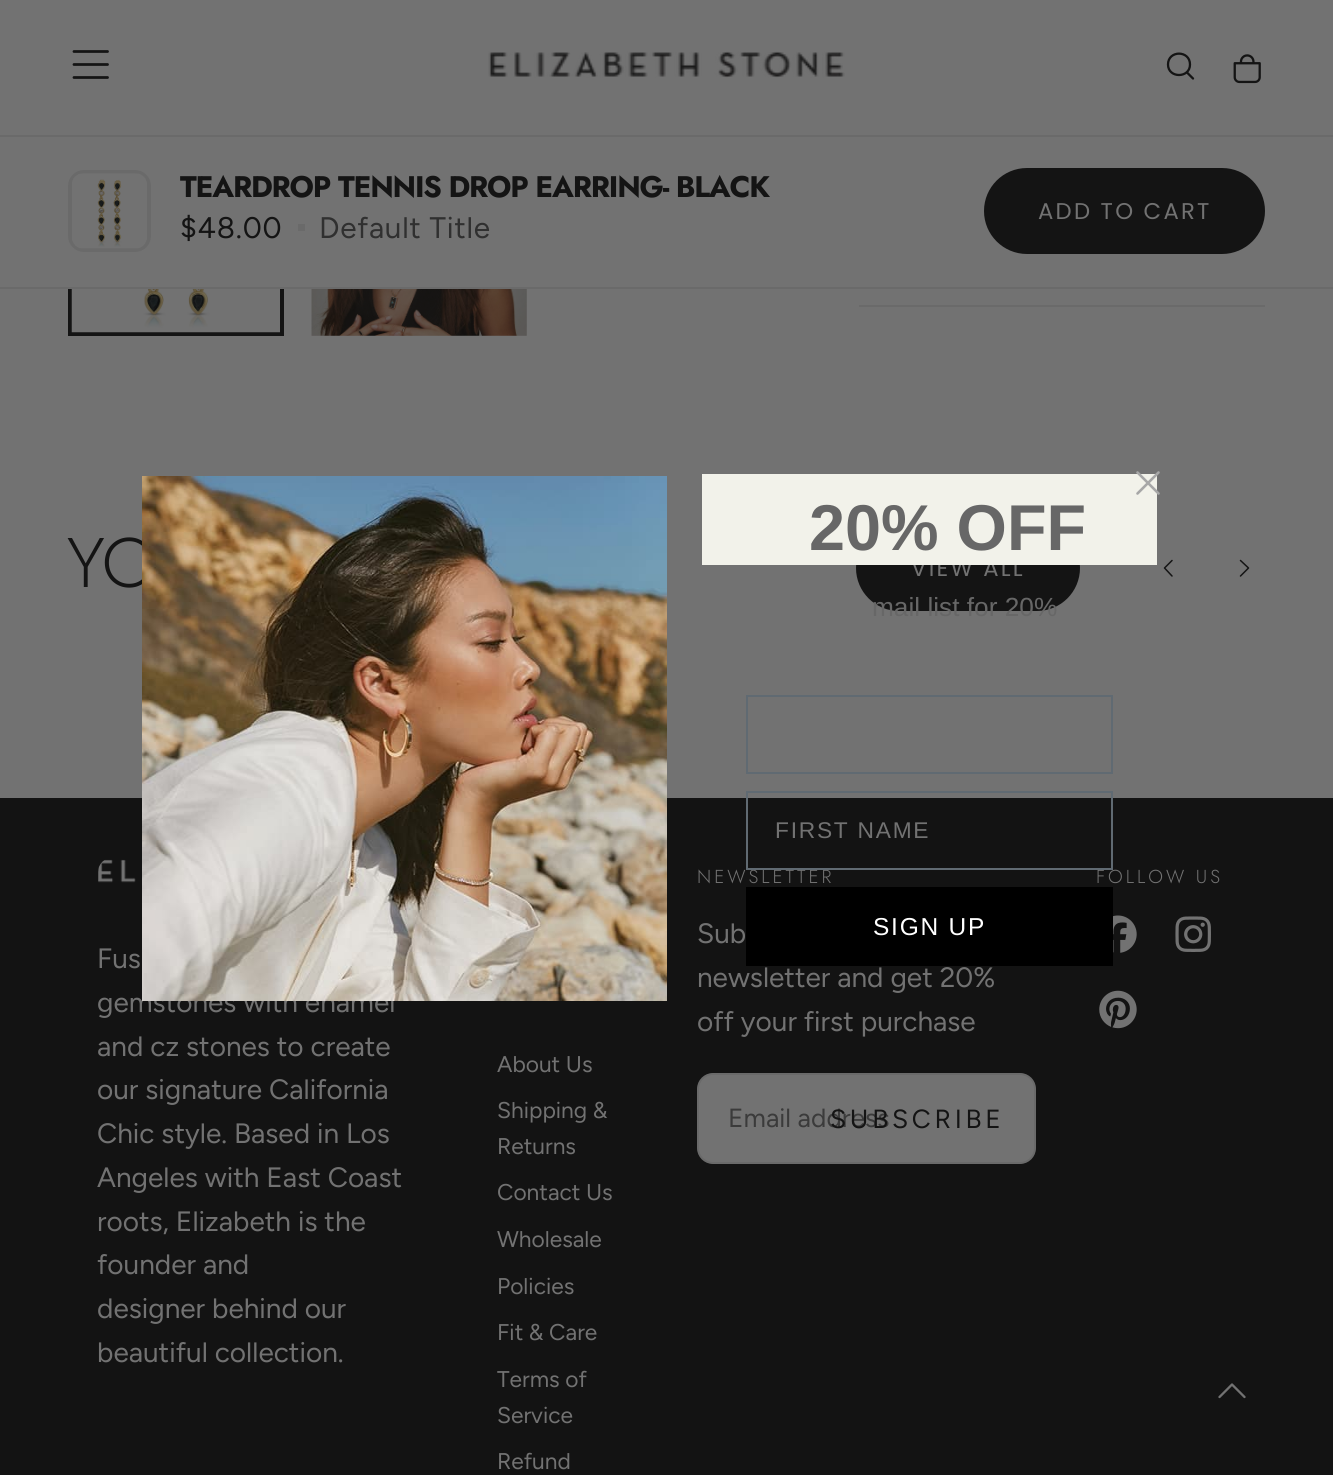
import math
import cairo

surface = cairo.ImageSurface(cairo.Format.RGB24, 1333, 1475)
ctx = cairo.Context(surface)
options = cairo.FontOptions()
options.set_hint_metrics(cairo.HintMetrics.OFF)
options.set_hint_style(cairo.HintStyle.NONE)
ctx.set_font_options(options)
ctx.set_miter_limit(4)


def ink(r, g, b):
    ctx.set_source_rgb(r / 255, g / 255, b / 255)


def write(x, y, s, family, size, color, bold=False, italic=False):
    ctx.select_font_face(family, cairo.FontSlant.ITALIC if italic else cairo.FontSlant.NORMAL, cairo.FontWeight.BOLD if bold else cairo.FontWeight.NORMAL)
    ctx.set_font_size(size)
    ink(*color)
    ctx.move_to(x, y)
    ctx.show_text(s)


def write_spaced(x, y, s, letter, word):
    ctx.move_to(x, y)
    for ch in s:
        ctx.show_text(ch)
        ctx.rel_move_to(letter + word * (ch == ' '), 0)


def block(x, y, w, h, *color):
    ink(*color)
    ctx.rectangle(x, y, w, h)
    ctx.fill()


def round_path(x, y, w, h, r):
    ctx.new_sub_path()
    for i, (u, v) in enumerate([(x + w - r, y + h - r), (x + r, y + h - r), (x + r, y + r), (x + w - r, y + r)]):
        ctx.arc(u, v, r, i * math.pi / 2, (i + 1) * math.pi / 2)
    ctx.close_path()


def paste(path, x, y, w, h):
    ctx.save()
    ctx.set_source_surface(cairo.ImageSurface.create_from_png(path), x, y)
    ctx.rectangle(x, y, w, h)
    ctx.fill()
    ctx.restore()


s1 = dict(family="Figtree", size=28, color=(114, 114, 114))
s2 = dict(family="Liberation Sans", size=64.75, color=(103, 103, 103), bold=True)
s3 = dict(family="Liberation Sans", size=26.25, color=(103, 103, 103))
s4 = dict(family="Figtree", size=26.25, color=(59, 59, 59))
s5 = dict(family="Figtree", size=22.75, color=(114, 114, 114))

ink(114, 114, 114)
ctx.paint()
ctx.rectangle(70, 123, 212, 211)
ink(20, 20, 20)
ctx.set_line_width(4)
ctx.stroke()
block(68, 121, 216, 14, 114, 114, 114)
block(0, 135, 1333, 2, 106, 106, 106)
ctx.new_path()
ctx.move_to(74, 64.5)
ctx.line_to(107.5, 64.5)
ctx.move_to(74, 51.5)
ctx.line_to(107.5, 51.5)
ctx.move_to(74, 77.5)
ctx.line_to(107.5, 77.5)
ink(20, 20, 20)
ctx.set_line_width(2.8)
ctx.set_line_cap(cairo.LineCap.ROUND)
ctx.stroke()
paste("pic1.png", 488, 51, 357, 27)
ctx.new_path()
ctx.move_to(1193, 78.5)
ctx.line_to(1187, 72.5)
ctx.move_to(1190, 64.5)
ctx.curve_to(1190, 78.5, 1168, 78.5, 1168, 64.5)
ctx.curve_to(1168, 50, 1190, 50, 1190, 64.5)
ctx.close_path()
ctx.set_line_width(2.3)
ctx.stroke()
paste("pic2.png", 1233, 54, 28, 30)
paste("pic3.png", 71, 289, 209, 44)
block(312, 289, 215, 47, 110, 110, 110)
paste("pic4.png", 311, 289, 216, 47)
block(859, 305, 406, 2, 106, 106, 106)
block(68, 137, 216, 150, 114, 114, 114)
block(0, 287, 1333, 2, 106, 106, 106)
round_path(70, 172, 79, 78, 14)
ctx.set_line_width(4)
ctx.set_line_cap(cairo.LineCap.BUTT)
ctx.stroke()
paste("pic5.png", 72, 173, 75, 76)
ctx.select_font_face("Jost", cairo.FontSlant.NORMAL, cairo.FontWeight.BOLD)
ctx.set_font_size(29.75)
ink(20, 20, 20)
write_spaced(180, 197, "TEARDROP TENNIS DROP EARRING- BLACK", -1.2, 0)
ctx.select_font_face("Figtree")
write_spaced(180, 238, "$48.00", 0.75, 0)
block(298, 224, 7, 7, 106, 106, 106)
ink(48, 48, 48)
write_spaced(319, 238, "Default Title", 0.75, 0)
ink(20, 20, 20)
round_path(985, 169, 279, 84, 42)
ctx.fill_preserve()
ctx.set_line_width(2)
ctx.stroke()
ctx.select_font_face("Poppins")
ctx.set_font_size(22.75)
ink(114, 114, 114)
write_spaced(1038, 219, "ADD TO CART", 2.25, 0)
ctx.select_font_face("Jost Light")
ctx.set_font_size(70)
ink(20, 20, 20)
write_spaced(67, 587, "YO", -3, 0)
round_path(857, 526, 222, 84, 42)
ctx.fill_preserve()
ctx.stroke()
ctx.select_font_face("Poppins")
ctx.set_font_size(22.75)
ink(114, 114, 114)
write_spaced(911, 576, "VIEW ALL", 2.25, 0)
ctx.new_path()
ctx.move_to(1172, 560.5)
ctx.line_to(1164.5, 568)
ctx.line_to(1172, 576)
ink(20, 20, 20)
ctx.set_line_width(1.5)
ctx.set_line_cap(cairo.LineCap.ROUND)
ctx.set_line_join(cairo.LineJoin.ROUND)
ctx.stroke()
ctx.new_path()
ctx.move_to(1240.5, 560.5)
ctx.line_to(1248.5, 568)
ctx.line_to(1240.5, 576)
ctx.stroke()
block(702, 474, 455, 91, 242, 242, 234)
ctx.new_path()
ctx.move_to(1137.5, 472.5)
ctx.line_to(1158.5, 493.5)
ctx.move_to(1137.5, 493.5)
ctx.line_to(1158.5, 472.5)
ctx.close_path()
ink(167, 167, 167)
ctx.set_line_width(2.6)
ctx.stroke()
block(0, 798, 1333, 677, 19, 19, 19)
write(97, 1012, "gemstones with enamel", **s1)
paste("pic6.png", 142, 476, 525, 525)
write(809, 550, "20% OFF", **s2)
write(872, 616, "mail list for 20%", **s3)
ctx.rectangle(747, 696, 365, 77)
ink(96, 106, 114)
ctx.set_line_width(2)
ctx.set_line_cap(cairo.LineCap.BUTT)
ctx.set_line_join(cairo.LineJoin.MITER)
ctx.stroke()
ctx.select_font_face("Jost Light")
ctx.set_font_size(18.75)
ink(114, 114, 114)
write_spaced(697, 883, "NEWSLETTER", 3, 0)
write_spaced(1096, 883, "FOLLOW US", 3, 0)
ctx.rectangle(747, 792, 365, 77)
ink(96, 106, 114)
ctx.stroke()
ctx.select_font_face("Liberation Sans")
ctx.set_font_size(22.75)
ink(114, 114, 114)
write_spaced(775, 838, "FIRST NAME", 1.75, 0)
block(746, 887, 367, 79, 0, 0, 0)
ctx.set_font_size(24.5)
ink(255, 255, 255)
write_spaced(873, 935, "SIGN UP", 1.75, 0)
write(697, 943, "Sub", **s1)
write(697, 987, "newsletter and get 20%", **s1)
write(697, 1031, "off your first purchase", **s1)
round_path(698, 1074, 337, 89, 15)
ctx.fill_preserve()
ink(106, 106, 106)
ctx.stroke()
write(728, 1127, "Email address", **s4)
ink(20, 20, 20)
write_spaced(830, 1128, "SUBSCRIBE", 3.75, 0)
paste("pic7.png", 1113, 915, 24, 38)
paste("pic8.png", 1175, 916, 36, 36)
paste("pic9.png", 1099, 990, 38, 39)
paste("pic10.png", 98, 859, 38, 24)
write(97, 968, "Fus", **s1)
write(97, 1056, "and cz stones to create", **s1)
write(97, 1099, "our signature California", **s1)
write(97, 1143, "Chic style. Based in Los", **s1)
write(97, 1187, "Angeles with East Coast", **s1)
write(97, 1231, "roots, Elizabeth is the", **s1)
write(97, 1274, "founder and", **s1)
write(97, 1318, "designer behind our", **s1)
write(97, 1362, "beautiful collection.", **s1)
write(497, 1072, "About Us", **s5)
write(497, 1118, "Shipping &", **s5)
write(497, 1154, "Returns", **s5)
write(497, 1200, "Contact Us", **s5)
write(497, 1247, "Wholesale", **s5)
write(497, 1294, "Policies", **s5)
write(497, 1340, "Fit & Care", **s5)
write(497, 1387, "Terms of", **s5)
write(497, 1423, "Service", **s5)
write(497, 1469, "Refund", **s5)
ctx.new_path()
ctx.move_to(1219.5, 1397)
ctx.line_to(1232, 1384.5)
ctx.line_to(1244.5, 1397)
ctx.set_line_width(2.3)
ctx.set_line_cap(cairo.LineCap.ROUND)
ctx.set_line_join(cairo.LineJoin.ROUND)
ctx.stroke()
surface.write_to_png("screenshot.png")
